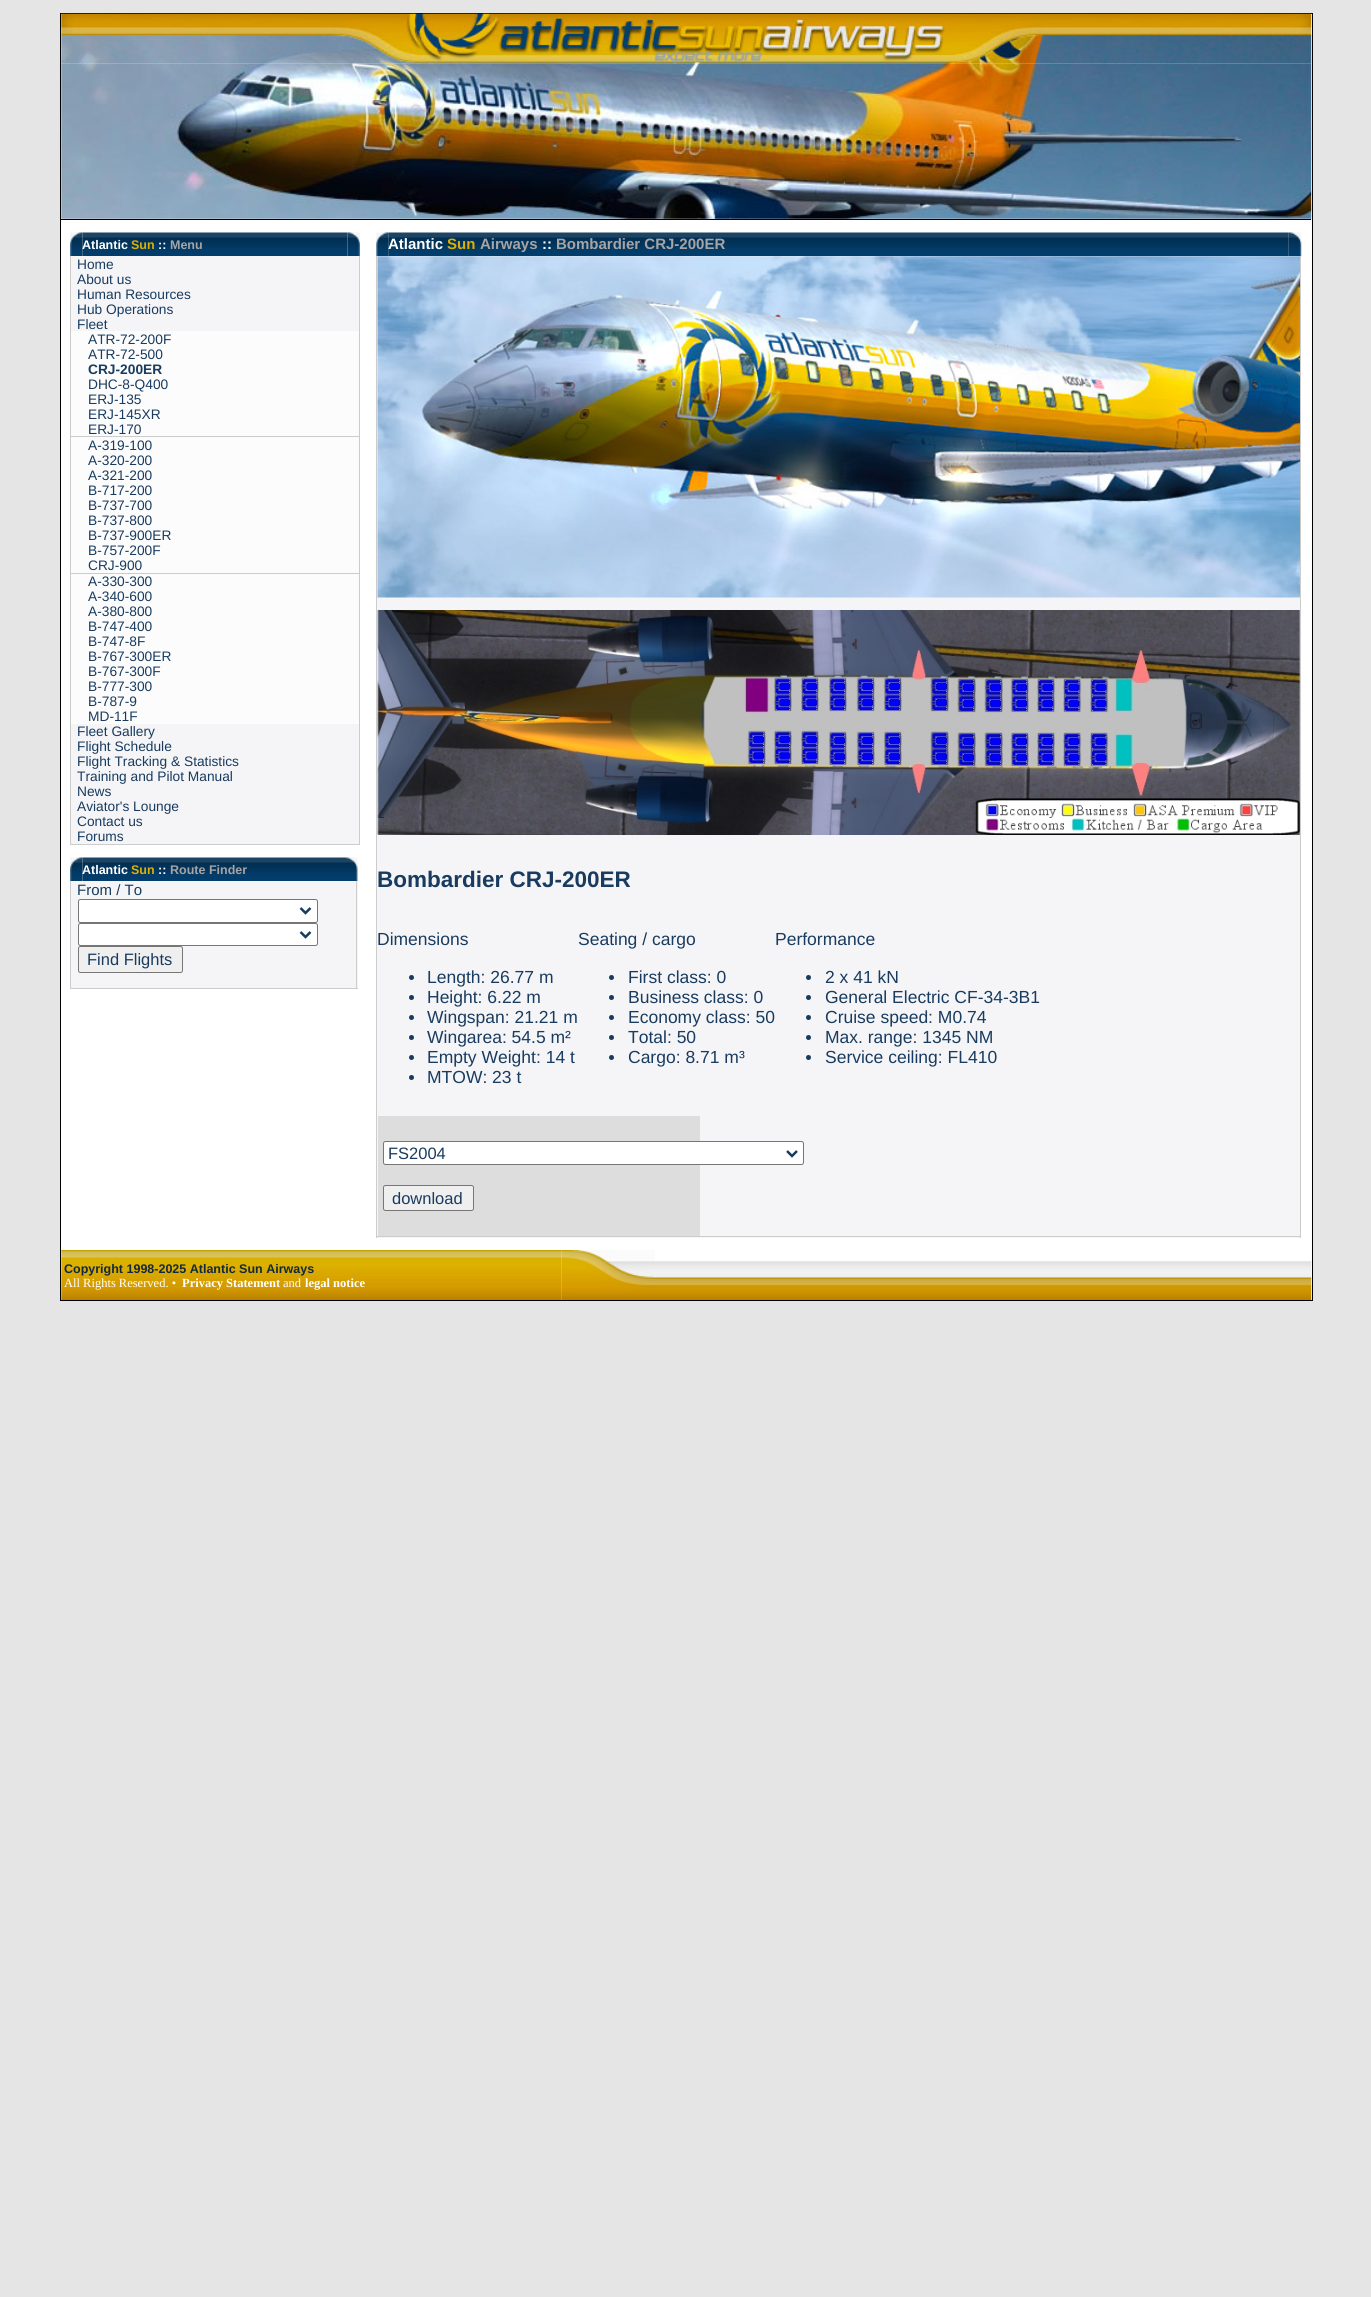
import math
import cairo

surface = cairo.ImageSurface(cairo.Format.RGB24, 1371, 2297)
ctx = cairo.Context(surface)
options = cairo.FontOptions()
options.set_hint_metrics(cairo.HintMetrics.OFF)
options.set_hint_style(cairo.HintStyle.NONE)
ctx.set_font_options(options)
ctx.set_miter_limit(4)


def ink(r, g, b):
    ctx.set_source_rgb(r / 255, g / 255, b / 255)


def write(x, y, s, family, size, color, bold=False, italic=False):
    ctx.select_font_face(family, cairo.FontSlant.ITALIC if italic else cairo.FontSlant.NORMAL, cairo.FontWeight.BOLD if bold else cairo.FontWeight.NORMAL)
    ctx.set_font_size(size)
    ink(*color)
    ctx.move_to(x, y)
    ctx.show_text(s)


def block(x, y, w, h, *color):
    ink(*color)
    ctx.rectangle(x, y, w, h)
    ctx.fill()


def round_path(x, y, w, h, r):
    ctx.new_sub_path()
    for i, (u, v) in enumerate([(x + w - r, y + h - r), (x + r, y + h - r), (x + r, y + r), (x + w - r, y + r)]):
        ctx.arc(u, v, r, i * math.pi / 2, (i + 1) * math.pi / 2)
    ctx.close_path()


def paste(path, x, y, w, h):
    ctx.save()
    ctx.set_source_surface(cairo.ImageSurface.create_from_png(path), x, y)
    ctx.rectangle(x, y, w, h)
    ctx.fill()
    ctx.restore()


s1 = dict(family="Liberation Sans", size=12.5, color=(255, 255, 255), bold=True)
s2 = dict(family="Liberation Sans", size=12.5, color=(222, 176, 2), bold=True)
s3 = dict(family="Liberation Sans", size=12.5, color=(166, 164, 165), bold=True)
s4 = dict(family="Liberation Sans", size=13.75, color=(24, 59, 95))
s5 = dict(family="Liberation Sans", size=13.75, color=(24, 59, 95), bold=True)
s6 = dict(family="Liberation Sans", size=15, color=(24, 59, 95))
s7 = dict(family="Liberation Sans", size=16.5, color=(24, 59, 95))
s8 = dict(family="Liberation Sans", size=15, color=(255, 255, 255), bold=True)
s9 = dict(family="Liberation Sans", size=15, color=(222, 176, 2), bold=True)
s10 = dict(family="Liberation Sans", size=15, color=(166, 164, 165), bold=True)
s11 = dict(family="Liberation Sans", size=22.5, color=(24, 59, 95), bold=True)
s12 = dict(family="Liberation Sans", size=17.5, color=(24, 59, 95))
s13 = dict(family="Liberation Sans", size=12.5, color=(18, 41, 61), bold=True)
s14 = dict(family="Liberation Serif", size=12.5, color=(255, 255, 255))
s15 = dict(family="Liberation Serif", size=12.5, color=(255, 255, 255), bold=True)

ink(229, 229, 229)
ctx.paint()
ink(255, 255, 255)
ctx.rectangle(60.5, 13.5, 1252, 1287)
ctx.fill_preserve()
ink(0, 0, 0)
ctx.set_line_width(1)
ctx.stroke()
block(61, 219, 1250, 1, 0, 0, 0)
paste("pic1.png", 61, 13, 1251, 51)
paste("pic2.png", 61, 63, 1251, 156)
block(70, 844, 290, 1, 204, 204, 204)
paste("pic3.png", 70, 232, 13, 24)
paste("pic4.png", 82, 232, 266, 24)
write(82, 249, "Atlantic", **s1)
write(131, 249, "Sun", **s2)
write(158, 249, "::", **s1)
write(170, 249, "Menu", **s3)
paste("pic5.png", 347, 232, 13, 24)
block(71, 256, 288, 75, 245, 245, 247)
block(359, 256, 1, 588, 204, 204, 204)
block(70, 256, 1, 165, 204, 204, 204)
write(77, 269, "Home", **s4)
write(77, 284, "About us", **s4)
write(77, 299, "Human Resources", **s4)
write(77, 314, "Hub Operations", **s4)
write(77, 329, "Fleet", **s4)
block(71, 331, 288, 242, 252, 252, 252)
write(88, 344, "ATR-72-200F", **s4)
write(88, 359, "ATR-72-500", **s4)
write(88, 374, "CRJ-200ER", **s5)
write(88, 389, "DHC-8-Q400", **s4)
write(88, 404, "ERJ-135", **s4)
write(88, 419, "ERJ-145XR", **s4)
block(70, 436, 290, 1, 204, 204, 204)
block(70, 421, 1, 137, 204, 204, 204)
write(88, 434, "ERJ-170", **s4)
write(88, 450, "A-319-100", **s4)
write(88, 465, "A-320-200", **s4)
write(88, 480, "A-321-200", **s4)
write(88, 495, "B-717-200", **s4)
write(88, 510, "B-737-700", **s4)
write(88, 525, "B-737-800", **s4)
write(88, 540, "B-737-900ER", **s4)
write(88, 555, "B-757-200F", **s4)
block(70, 573, 290, 1, 204, 204, 204)
block(70, 558, 1, 286, 204, 204, 204)
write(88, 570, "CRJ-900", **s4)
block(71, 574, 288, 150, 252, 252, 252)
write(88, 586, "A-330-300", **s4)
write(88, 601, "A-340-600", **s4)
write(88, 616, "A-380-800", **s4)
write(88, 631, "B-747-400", **s4)
write(88, 646, "B-747-8F", **s4)
write(88, 661, "B-767-300ER", **s4)
write(88, 676, "B-767-300F", **s4)
write(88, 691, "B-777-300", **s4)
write(88, 706, "B-787-9", **s4)
write(88, 721, "MD-11F", **s4)
block(71, 724, 288, 120, 245, 245, 247)
write(77, 736, "Fleet Gallery", **s4)
write(77, 751, "Flight Schedule", **s4)
write(77, 766, "Flight Tracking & Statistics", **s4)
write(77, 781, "Training and Pilot Manual", **s4)
write(77, 796, "News", **s4)
write(77, 811, "Aviator's Lounge", **s4)
write(77, 826, "Contact us", **s4)
write(77, 841, "Forums", **s4)
paste("pic3.png", 70, 857, 13, 24)
paste("pic6.png", 82, 857, 263, 24)
write(82, 874, "Atlantic", **s1)
write(131, 874, "Sun", **s2)
write(158, 874, "::", **s1)
write(170, 874, "Route Finder", **s3)
paste("pic7.png", 345, 857, 13, 24)
block(71, 881, 287, 107, 245, 245, 247)
block(356, 881, 1, 108, 204, 204, 204)
block(70, 988, 288, 1, 204, 204, 204)
block(70, 881, 1, 108, 204, 204, 204)
write(77, 895, "From / To", **s6)
ink(255, 255, 255)
round_path(78.5, 899.5, 239, 23, 2)
ctx.fill_preserve()
ink(118, 118, 118)
ctx.stroke()
ctx.new_path()
ctx.move_to(300.5, 908)
ctx.line_to(305.5, 913)
ctx.line_to(310.5, 908)
ink(24, 59, 95)
ctx.set_line_width(2.5)
ctx.stroke()
ink(255, 255, 255)
round_path(78.5, 923.5, 239, 22, 2)
ctx.fill_preserve()
ink(118, 118, 118)
ctx.set_line_width(1)
ctx.stroke()
ctx.new_path()
ctx.move_to(300.5, 932)
ctx.line_to(305.5, 937)
ctx.line_to(310.5, 932)
ink(24, 59, 95)
ctx.set_line_width(2.5)
ctx.stroke()
ink(239, 239, 239)
round_path(78.5, 946.5, 104, 26, 2)
ctx.fill_preserve()
ink(118, 118, 118)
ctx.set_line_width(1)
ctx.stroke()
write(87, 965, "Find Flights", **s7)
paste("pic8.png", 376, 232, 13, 24)
paste("pic9.png", 388, 232, 901, 24)
write(388, 249, "Atlantic", **s8)
write(447, 249, "Sun", **s9)
write(480, 249, "Airways", **s10)
write(542, 249, "::", **s8)
write(556, 249, "Bombardier CRJ-200ER", **s10)
paste("pic10.png", 1288, 232, 14, 25)
block(377, 256, 923, 982, 245, 245, 247)
block(1300, 256, 1, 982, 204, 204, 204)
block(376, 1236, 925, 1, 204, 204, 204)
block(376, 256, 1, 982, 204, 204, 204)
paste("pic11.png", 377, 256, 923, 342)
paste("pic12.png", 377, 610, 923, 225)
write(377, 887, "Bombardier CRJ-200ER", **s11)
write(377, 945, "Dimensions", **s12)
ctx.new_path()
ctx.arc(411.5, 977.5, 2.5, 0, 2 * math.pi)
ctx.fill()
write(427, 983, "Length: 26.77 m", **s12)
ctx.new_path()
ctx.arc(411.5, 997.5, 2.5, 0, 2 * math.pi)
ctx.fill()
write(427, 1003, "Height: 6.22 m", **s12)
ctx.new_path()
ctx.arc(411.5, 1017.5, 2.5, 0, 2 * math.pi)
ctx.fill()
write(427, 1023, "Wingspan: 21.21 m", **s12)
ctx.new_path()
ctx.arc(411.5, 1037.5, 2.5, 0, 2 * math.pi)
ctx.fill()
write(427, 1043, "Wingarea: 54.5 m²", **s12)
ctx.new_path()
ctx.arc(411.5, 1057.5, 2.5, 0, 2 * math.pi)
ctx.fill()
write(427, 1063, "Empty Weight: 14 t", **s12)
ctx.new_path()
ctx.arc(411.5, 1077.5, 2.5, 0, 2 * math.pi)
ctx.fill()
write(427, 1083, "MTOW: 23 t", **s12)
write(578, 945, "Seating / cargo", **s12)
ctx.new_path()
ctx.arc(611.5, 977.5, 2.5, 0, 2 * math.pi)
ctx.fill()
write(628, 983, "First class: 0", **s12)
ctx.new_path()
ctx.arc(611.5, 997.5, 2.5, 0, 2 * math.pi)
ctx.fill()
write(628, 1003, "Business class: 0", **s12)
ctx.new_path()
ctx.arc(611.5, 1017.5, 2.5, 0, 2 * math.pi)
ctx.fill()
write(628, 1023, "Economy class: 50", **s12)
ctx.new_path()
ctx.arc(611.5, 1037.5, 2.5, 0, 2 * math.pi)
ctx.fill()
write(628, 1043, "Total: 50", **s12)
ctx.new_path()
ctx.arc(611.5, 1057.5, 2.5, 0, 2 * math.pi)
ctx.fill()
write(628, 1063, "Cargo: 8.71 m³", **s12)
write(775, 945, "Performance", **s12)
ctx.new_path()
ctx.arc(808.5, 977.5, 2.5, 0, 2 * math.pi)
ctx.fill()
write(825, 983, "2 x 41 kN", **s12)
ctx.new_path()
ctx.arc(808.5, 997.5, 2.5, 0, 2 * math.pi)
ctx.fill()
write(825, 1003, "General Electric CF-34-3B1", **s12)
ctx.new_path()
ctx.arc(808.5, 1017.5, 2.5, 0, 2 * math.pi)
ctx.fill()
write(825, 1023, "Cruise speed: M0.74", **s12)
ctx.new_path()
ctx.arc(808.5, 1037.5, 2.5, 0, 2 * math.pi)
ctx.fill()
write(825, 1043, "Max. range: 1345 NM", **s12)
ctx.new_path()
ctx.arc(808.5, 1057.5, 2.5, 0, 2 * math.pi)
ctx.fill()
write(825, 1063, "Service ceiling: FL410", **s12)
block(378, 1116, 322, 120, 221, 221, 221)
ink(255, 255, 255)
round_path(383.5, 1141.5, 420, 23, 2)
ctx.fill_preserve()
ink(118, 118, 118)
ctx.stroke()
ctx.new_path()
ctx.move_to(787, 1151)
ctx.line_to(792, 1156)
ctx.line_to(797, 1151)
ink(24, 59, 95)
ctx.set_line_width(2.5)
ctx.stroke()
write(388, 1159, "FS2004", **s7)
ink(239, 239, 239)
round_path(383.5, 1185.5, 90, 25, 2)
ctx.fill_preserve()
ink(118, 118, 118)
ctx.set_line_width(1)
ctx.stroke()
write(392, 1204, "download", **s7)
paste("pic13.png", 61, 1250, 501, 50)
write(64, 1273, "Copyright 1998-2025 Atlantic Sun Airways", **s13)
write(64, 1287, "All Rights Reserved. •", **s14)
write(182, 1287, "Privacy Statement", **s15)
write(283, 1287, "and", **s14)
write(305, 1287, "legal notice", **s15)
paste("pic14.png", 561, 1250, 94, 50)
paste("pic15.png", 655, 1261, 657, 39)
surface.write_to_png("screenshot.png")
